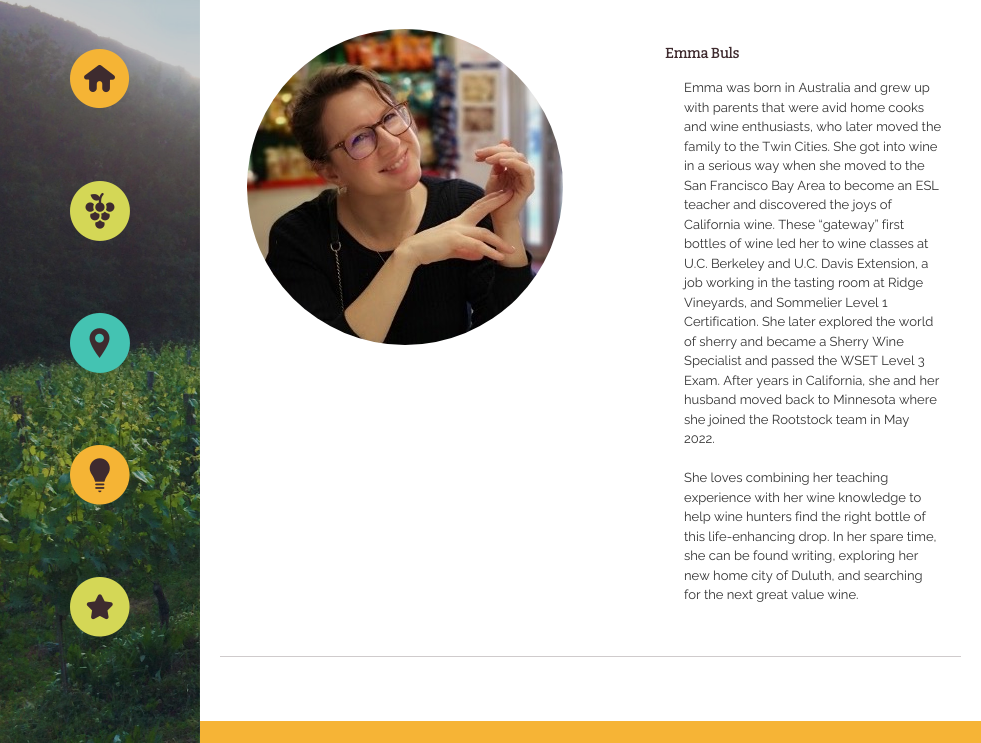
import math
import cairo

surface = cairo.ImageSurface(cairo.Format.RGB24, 981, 743)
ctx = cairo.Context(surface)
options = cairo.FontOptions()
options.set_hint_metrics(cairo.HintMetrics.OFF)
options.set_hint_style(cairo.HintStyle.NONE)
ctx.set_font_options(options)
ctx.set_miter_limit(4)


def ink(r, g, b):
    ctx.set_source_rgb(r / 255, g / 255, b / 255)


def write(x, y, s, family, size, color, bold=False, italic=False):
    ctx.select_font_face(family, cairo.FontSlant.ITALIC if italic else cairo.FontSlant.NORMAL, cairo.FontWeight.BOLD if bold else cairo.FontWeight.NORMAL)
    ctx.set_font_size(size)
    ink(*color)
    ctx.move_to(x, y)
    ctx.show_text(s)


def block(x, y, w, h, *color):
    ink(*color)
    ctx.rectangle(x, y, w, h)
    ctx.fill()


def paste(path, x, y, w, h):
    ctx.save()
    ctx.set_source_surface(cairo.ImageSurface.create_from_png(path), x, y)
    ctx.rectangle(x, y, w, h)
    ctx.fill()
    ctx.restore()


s1 = dict(family="Bitter", size=14, color=(63, 43, 47), bold=True)
s2 = dict(family="Raleway", size=13, color=(51, 51, 51))

ink(255, 255, 255)
ctx.paint()
paste("pic1.png", 0, 0, 200, 743)
paste("pic2.png", 70, 49, 60, 60)
paste("pic3.png", 70, 181, 60, 60)
paste("pic4.png", 70, 313, 60, 60)
paste("pic5.png", 70, 445, 60, 60)
paste("pic6.png", 70, 577, 60, 60)
block(220, 656, 741, 1, 207, 203, 204)
paste("pic7.png", 247, 29, 316, 316)
write(665, 58, "Emma Buls", **s1)
write(684, 92, "Emma was born in Australia and grew up", **s2)
write(684, 112, "with parents that were avid home cooks", **s2)
write(684, 131, "and wine enthusiasts, who later moved the", **s2)
write(684, 151, "family to the Twin Cities. She got into wine", **s2)
write(684, 170, "in a serious way when she moved to the", **s2)
write(684, 190, "San Francisco Bay Area to become an ESL", **s2)
write(684, 209, "teacher and discovered the joys of", **s2)
write(684, 229, "California wine. These “gateway” first", **s2)
write(684, 248, "bottles of wine led her to wine classes at", **s2)
write(684, 268, "U.C. Berkeley and U.C. Davis Extension, a", **s2)
write(684, 287, "job working in the tasting room at Ridge", **s2)
write(684, 307, "Vineyards, and Sommelier Level 1", **s2)
write(684, 326, "Certification. She later explored the world", **s2)
write(684, 346, "of sherry and became a Sherry Wine", **s2)
write(684, 365, "Specialist and passed the WSET Level 3", **s2)
write(684, 385, "Exam. After years in California, she and her", **s2)
write(684, 404, "husband moved back to Minnesota where", **s2)
write(684, 424, "she joined the Rootstock team in May", **s2)
write(684, 443, "2022.", **s2)
write(684, 482, "She loves combining her teaching", **s2)
write(684, 502, "experience with her wine knowledge to", **s2)
write(684, 521, "help wine hunters find the right bottle of", **s2)
write(684, 541, "this life-enhancing drop. In her spare time,", **s2)
write(684, 560, "she can be found writing, exploring her", **s2)
write(684, 580, "new home city of Duluth, and searching", **s2)
write(684, 599, "for the next great value wine.", **s2)
block(200, 721, 781, 22, 246, 180, 54)
surface.write_to_png("screenshot.png")
